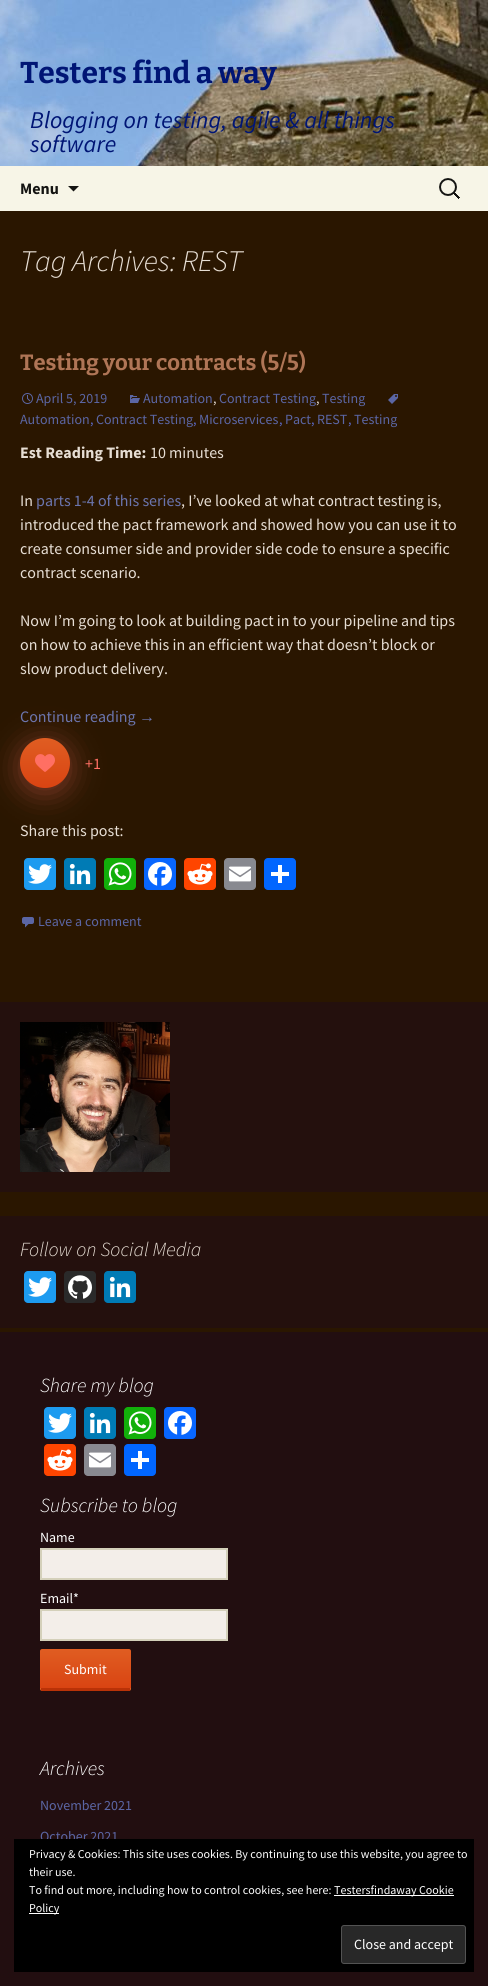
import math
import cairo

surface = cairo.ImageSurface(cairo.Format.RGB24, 488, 1986)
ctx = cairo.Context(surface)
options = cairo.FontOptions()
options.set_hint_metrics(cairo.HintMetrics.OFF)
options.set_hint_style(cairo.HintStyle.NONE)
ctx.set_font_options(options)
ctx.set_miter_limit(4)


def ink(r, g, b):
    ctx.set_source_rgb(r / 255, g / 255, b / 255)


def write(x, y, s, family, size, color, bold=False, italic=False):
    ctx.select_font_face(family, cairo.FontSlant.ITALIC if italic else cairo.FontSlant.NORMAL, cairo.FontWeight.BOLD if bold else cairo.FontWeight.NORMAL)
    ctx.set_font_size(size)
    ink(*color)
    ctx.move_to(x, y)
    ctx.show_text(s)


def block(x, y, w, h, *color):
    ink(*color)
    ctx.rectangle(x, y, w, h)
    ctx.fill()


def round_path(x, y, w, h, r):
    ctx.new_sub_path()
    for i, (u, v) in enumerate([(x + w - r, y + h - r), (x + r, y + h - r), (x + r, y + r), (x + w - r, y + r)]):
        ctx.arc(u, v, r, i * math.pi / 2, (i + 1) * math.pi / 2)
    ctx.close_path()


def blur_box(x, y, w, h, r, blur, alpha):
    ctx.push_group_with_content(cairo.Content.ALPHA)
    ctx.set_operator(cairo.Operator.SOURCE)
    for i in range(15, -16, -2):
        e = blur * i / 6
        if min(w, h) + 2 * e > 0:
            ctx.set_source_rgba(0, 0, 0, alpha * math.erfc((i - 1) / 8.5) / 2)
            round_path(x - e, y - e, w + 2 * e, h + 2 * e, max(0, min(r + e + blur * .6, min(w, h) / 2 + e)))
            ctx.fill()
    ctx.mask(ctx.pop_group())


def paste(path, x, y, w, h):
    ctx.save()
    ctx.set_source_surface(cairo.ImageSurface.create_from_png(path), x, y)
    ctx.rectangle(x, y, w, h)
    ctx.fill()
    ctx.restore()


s1 = dict(family="Bitter", size=30, color=(0, 21, 117), bold=True)
s2 = dict(family="Source Sans Pro", size=24, color=(0, 21, 117), italic=True)
s3 = dict(family="Source Sans Pro", size=16, color=(20, 20, 18), bold=True)
s4 = dict(family="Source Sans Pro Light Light", size=30, color=(231, 222, 212), italic=True)
s5 = dict(family="Bitter", size=22, color=(175, 117, 86), bold=True)
s6 = dict(family="Source Sans Pro", size=14, color=(91, 102, 165))
s7 = dict(family="Source Sans Pro", size=14, color=(231, 222, 212))
s8 = dict(family="Source Sans Pro", size=14, color=(92, 107, 205))
s9 = dict(family="Source Sans Pro", size=16, color=(231, 222, 212), bold=True)
s10 = dict(family="Source Sans Pro", size=16, color=(231, 222, 212))
s11 = dict(family="Source Sans Pro", size=16, color=(107, 117, 174))
s12 = dict(family="Liberation Sans", size=16, color=(107, 117, 174))
s13 = dict(family="Source Sans Pro", size=16, color=(255, 111, 99))
s14 = dict(family="Source Sans Pro Light Light", size=20, color=(231, 222, 212), italic=True)
s15 = dict(family="Source Sans Pro Light Light", size=20, color=(255, 255, 255), italic=True)
s16 = dict(family="Source Sans Pro", size=14, color=(255, 255, 255))
s17 = dict(family="Source Sans Pro", size=12, color=(255, 255, 255))

ink(42, 22, 0)
ctx.paint()
paste("pic1.png", 0, 0, 488, 166)
write(20, 83, "Testers find a way", **s1)
write(30, 128, "Blogging on testing, agile & all things", **s2)
write(30, 152, "software", **s2)
block(0, 166, 488, 45, 247, 245, 231)
write(20, 194, "Menu", **s3)
ctx.new_path()
ctx.move_to(68, 186)
ctx.line_to(79, 186)
ctx.line_to(73.5, 191.5)
ctx.close_path()
ctx.fill()
paste("pic2.png", 439, 178, 21, 21)
write(20, 271, "Tag Archives: REST", **s4)
write(20, 370, "Testing your contracts (5/5)", **s5)
paste("pic3.png", 22, 393, 11, 11)
write(36, 403, "April 5, 2019", **s6)
paste("pic4.png", 130, 395, 10, 8)
write(143, 403, "Automation", **s6)
write(213, 403, ",", **s7)
write(219, 403, "Contract Testing", **s6)
write(316, 403, ",", **s7)
write(322, 403, "Testing", **s6)
paste("pic5.png", 388, 394, 10, 10)
write(20, 424, "Automation", **s6)
write(90, 424, ",", **s8)
write(96, 424, "Contract Testing", **s6)
write(193, 424, ",", **s8)
write(199, 424, "Microservices", **s6)
write(279, 424, ",", **s8)
write(285, 424, "Pact", **s6)
write(311, 424, ",", **s8)
write(317, 424, "REST", **s6)
write(348, 424, ",", **s8)
write(354, 424, "Testing", **s6)
write(20, 458, "Est Reading Time:", **s9)
write(150, 458, "10 minutes", **s10)
write(20, 506, "In", **s10)
write(36, 506, "parts 1-4 of this series", **s11)
write(181, 506, ", I’ve looked at what contract testing is,", **s10)
write(20, 530, "introduced the pact framework and showed how you can use it to", **s10)
write(20, 554, "create consumer side and provider side code to ensure a specific", **s10)
write(20, 578, "contract scenario.", **s10)
write(20, 626, "Now I’m going to look at building pact in to your pipeline and tips", **s10)
write(20, 650, "on how to achieve this in an efficient way that doesn’t block or", **s10)
write(20, 674, "slow product delivery.", **s10)
write(20, 722, "Continue reading", **s11)
write(139, 722, "→", **s12)
ink(255, 111, 99)
blur_box(20, 743, 50, 50, 25, 15, 0.4)
gradient = cairo.LinearGradient(45, 738, 45, 788)
gradient.add_color_stop_rgba(0, 0.878, 0.365, 0.133, 1)
gradient.add_color_stop_rgba(1, 0.851, 0.267, 0.071, 1)
ctx.set_source(gradient)
ctx.arc(45, 763, 25, 0, 2 * math.pi)
ctx.fill()
paste("pic6.png", 35, 754, 20, 18)
write(85, 769, "+1", **s13)
write(20, 836, "Share this post:", **s10)
ink(29, 155, 240)
round_path(24, 858, 32, 32, 4)
ctx.fill()
paste("pic7.png", 28, 864, 24, 20)
ink(0, 123, 181)
round_path(64, 858, 32, 32, 4)
ctx.fill()
paste("pic8.png", 69, 863, 22, 22)
ink(18, 175, 10)
round_path(104, 858, 32, 32, 4)
ctx.fill()
paste("pic9.png", 108, 862, 24, 24)
ink(8, 102, 255)
round_path(144, 858, 32, 32, 4)
ctx.fill()
paste("pic10.png", 148, 862, 24, 24)
ink(255, 69, 0)
round_path(184, 858, 32, 32, 4)
ctx.fill()
paste("pic11.png", 187, 863, 26, 22)
ink(136, 137, 144)
round_path(224, 858, 32, 32, 4)
ctx.fill()
paste("pic12.png", 229, 866, 22, 16)
ink(1, 102, 255)
round_path(264, 858, 32, 32, 4)
ctx.fill()
block(278, 865, 4, 18, 255, 255, 255)
block(271, 872, 18, 4, 255, 255, 255)
paste("pic13.png", 22, 917, 12, 11)
write(38, 926, "Leave a comment", **s6)
block(0, 1002, 488, 190, 36, 16, 13)
paste("pic14.png", 20, 1022, 150, 150)
block(0, 1216, 488, 112, 36, 16, 13)
write(20, 1256, "Follow on Social Media", **s14)
ink(29, 155, 240)
round_path(24, 1271, 32, 32, 4)
ctx.fill()
paste("pic7.png", 28, 1277, 24, 20)
ink(42, 42, 42)
round_path(64, 1271, 32, 32, 4)
ctx.fill()
paste("pic15.png", 68, 1275, 24, 24)
ink(0, 123, 181)
round_path(104, 1271, 32, 32, 4)
ctx.fill()
paste("pic8.png", 109, 1276, 22, 22)
block(0, 1332, 488, 654, 34, 14, 16)
write(40, 1392, "Share my blog", **s15)
ink(29, 155, 240)
round_path(44, 1407, 32, 32, 4)
ctx.fill()
paste("pic7.png", 48, 1413, 24, 20)
ink(0, 123, 181)
round_path(84, 1407, 32, 32, 4)
ctx.fill()
paste("pic8.png", 89, 1412, 22, 22)
ink(18, 175, 10)
round_path(124, 1407, 32, 32, 4)
ctx.fill()
paste("pic9.png", 128, 1411, 24, 24)
ink(8, 102, 255)
round_path(164, 1407, 32, 32, 4)
ctx.fill()
paste("pic10.png", 168, 1411, 24, 24)
ink(255, 69, 0)
round_path(44, 1444, 32, 32, 4)
ctx.fill()
paste("pic11.png", 47, 1449, 26, 22)
ink(136, 137, 144)
round_path(84, 1444, 32, 32, 4)
ctx.fill()
paste("pic12.png", 89, 1452, 22, 16)
ink(1, 102, 255)
round_path(124, 1444, 32, 32, 4)
ctx.fill()
block(138, 1451, 4, 18, 255, 255, 255)
block(131, 1458, 18, 4, 255, 255, 255)
write(40, 1512, "Subscribe to blog", **s15)
write(40, 1542, "Name", **s16)
ink(243, 238, 233)
ctx.rectangle(41, 1549, 186, 30)
ctx.fill_preserve()
ink(212, 208, 186)
ctx.stroke()
write(40, 1603, "Email*", **s16)
ink(243, 238, 233)
ctx.rectangle(41, 1610, 186, 30)
ctx.fill_preserve()
ink(212, 208, 186)
ctx.stroke()
gradient = cairo.LinearGradient(86, 1649, 86, 1688)
gradient.add_color_stop_rgba(0, 0.878, 0.365, 0.133, 1)
gradient.add_color_stop_rgba(1, 0.851, 0.267, 0.071, 1)
ctx.set_source(gradient)
ctx.new_path()
ctx.move_to(42, 1649)
ctx.line_to(129, 1649)
ctx.curve_to(130, 1649, 131, 1650, 131, 1651)
ctx.line_to(131, 1688)
ctx.line_to(40, 1688)
ctx.line_to(40, 1651)
ctx.curve_to(40, 1650, 41, 1649, 42, 1649)
ctx.close_path()
ctx.fill()
gradient = cairo.LinearGradient(86, 1688, 86, 1727)
gradient.add_color_stop_rgba(0, 0.878, 0.365, 0.133, 1)
gradient.add_color_stop_rgba(1, 0.851, 0.267, 0.071, 1)
ctx.set_source(gradient)
ctx.new_path()
ctx.move_to(40, 1688)
ctx.line_to(131, 1688)
ctx.line_to(131, 1689)
ctx.curve_to(131, 1690, 130, 1691, 129, 1691)
ctx.line_to(42, 1691)
ctx.curve_to(41, 1691, 40, 1690, 40, 1689)
ctx.close_path()
ctx.fill()
block(41, 1688, 89, 3, 185, 50, 7)
write(64, 1674, "Submit", **s16)
write(40, 1775, "Archives", **s15)
write(40, 1810, "November 2021", **s6)
write(40, 1841, "October 2021", **s6)
block(14, 1839, 460, 133, 0, 0, 0)
write(29, 1858, "Privacy & Cookies: This site uses cookies. By continuing to use this website, you agree to", **s17)
write(29, 1876, "their use.", **s17)
write(29, 1894, "To find out more, including how to control cookies, see here:", **s17)
block(334, 1895, 120, 1, 255, 255, 255)
write(334, 1894, "Testersfindaway Cookie", **s17)
block(29, 1913, 30, 1, 255, 255, 255)
write(29, 1912, "Policy", **s17)
ink(40, 40, 40)
round_path(341.5, 1925.5, 124, 38, 2.5)
ctx.fill_preserve()
ink(83, 83, 83)
ctx.set_line_width(1)
ctx.stroke()
write(354, 1949, "Close and accept", **s16)
surface.write_to_png("screenshot.png")
